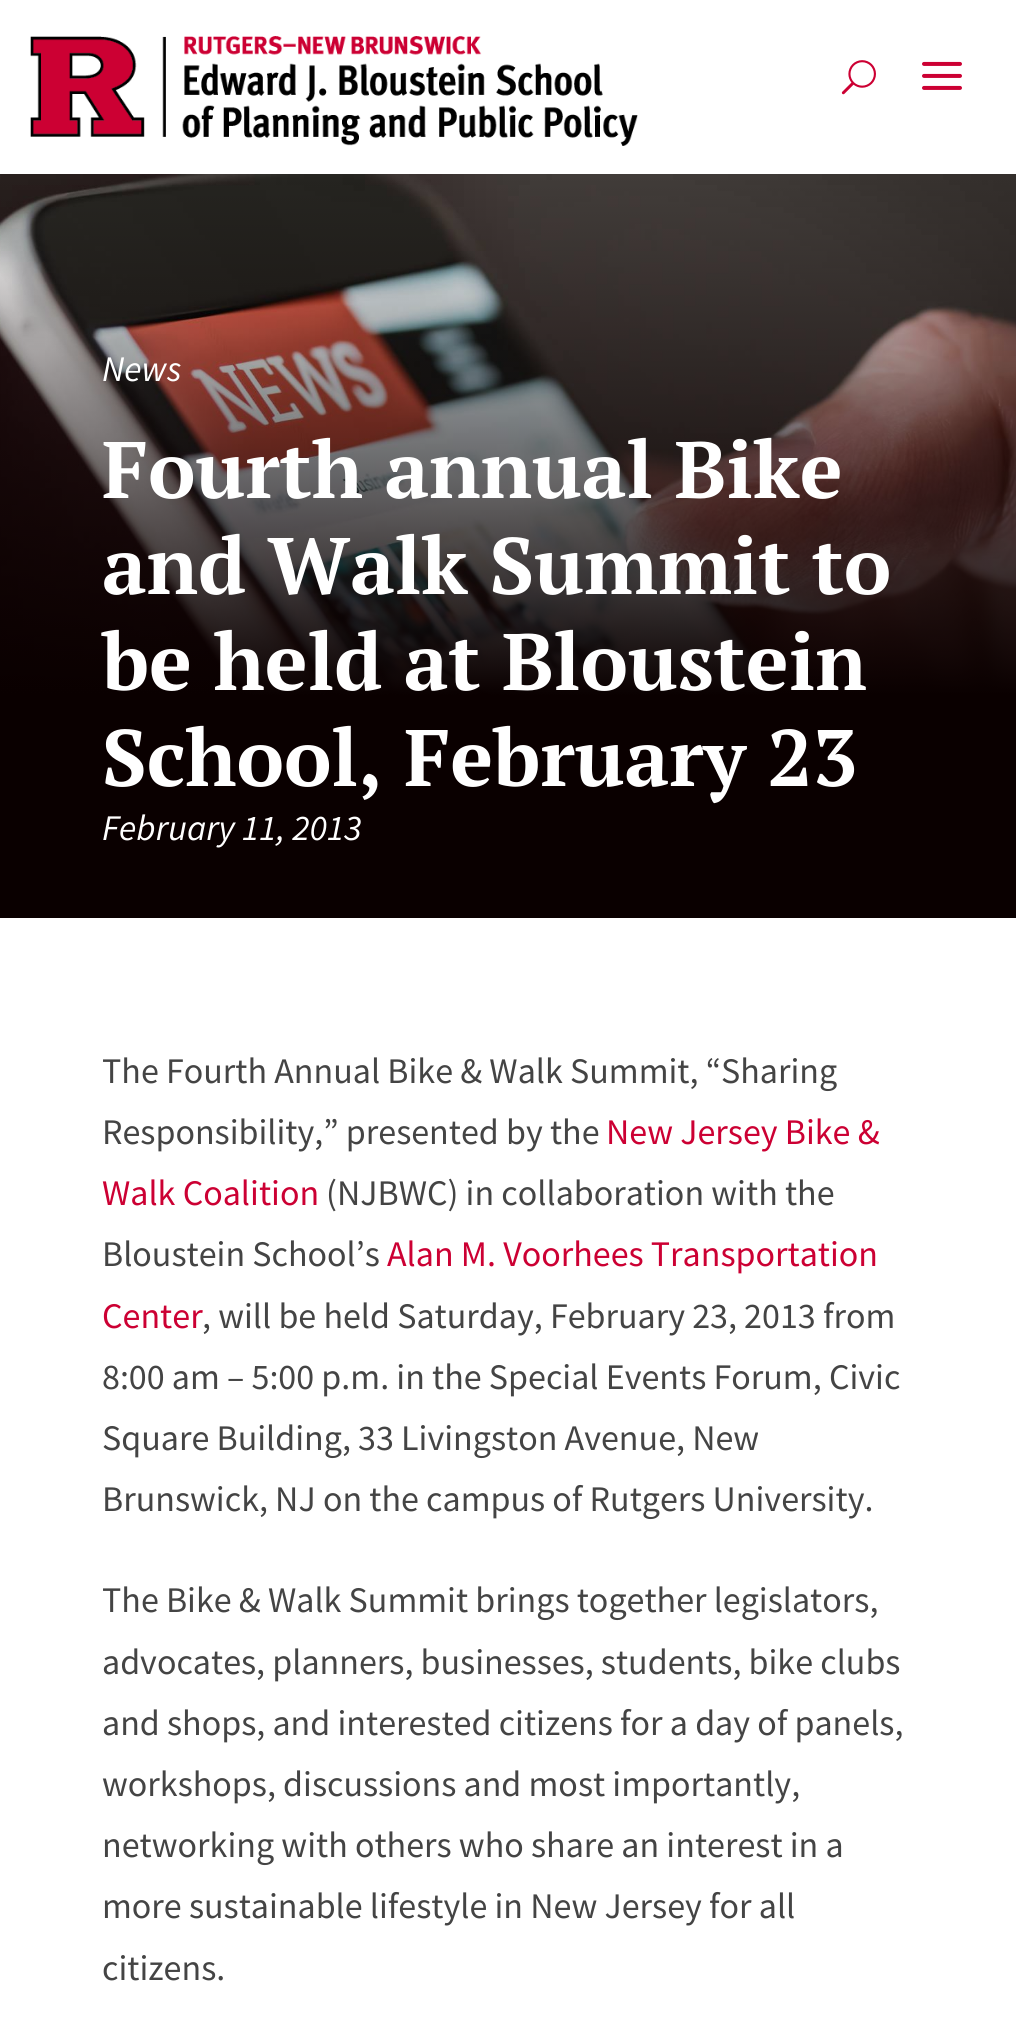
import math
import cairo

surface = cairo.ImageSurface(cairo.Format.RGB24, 1016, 2042)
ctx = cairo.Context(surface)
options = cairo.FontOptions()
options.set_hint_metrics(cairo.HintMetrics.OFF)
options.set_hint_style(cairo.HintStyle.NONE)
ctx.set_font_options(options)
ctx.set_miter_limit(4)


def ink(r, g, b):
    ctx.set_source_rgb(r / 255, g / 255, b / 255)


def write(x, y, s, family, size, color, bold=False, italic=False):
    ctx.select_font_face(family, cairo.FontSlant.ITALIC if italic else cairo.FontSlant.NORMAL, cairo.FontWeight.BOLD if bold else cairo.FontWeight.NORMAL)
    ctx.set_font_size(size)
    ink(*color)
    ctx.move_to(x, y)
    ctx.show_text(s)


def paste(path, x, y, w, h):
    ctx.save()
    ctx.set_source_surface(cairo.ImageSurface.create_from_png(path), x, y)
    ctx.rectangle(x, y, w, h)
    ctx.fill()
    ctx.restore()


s1 = dict(family="Source Sans Pro", size=36, color=(255, 255, 255), italic=True)
s2 = dict(family="PT Serif", size=80, color=(255, 255, 255), bold=True)
s3 = dict(family="Source Sans Pro", size=36, color=(68, 68, 68))
s4 = dict(family="Source Sans Pro", size=36, color=(204, 0, 51))

ink(255, 255, 255)
ctx.paint()
paste("pic1.png", 30, 36, 608, 110)
paste("pic2.png", 841, 60, 35, 35)
paste("pic3.png", 922, 61, 40, 29)
paste("pic4.png", 0, 174, 1016, 744)
write(102, 381, "News", **s1)
write(102, 498, "Fourth annual Bike", **s2)
write(102, 594, "and Walk Summit to", **s2)
write(102, 690, "be held at Bloustein", **s2)
write(102, 786, "School, February 23", **s2)
write(102, 840, "February 11, 2013", **s1)
write(102, 1083, "The Fourth Annual Bike & Walk Summit, “Sharing", **s3)
write(102, 1144, "Responsibility,” presented by the", **s3)
write(606, 1144, "New Jersey Bike &", **s4)
write(102, 1205, "Walk Coalition", **s4)
write(326, 1205, "(NJBWC) in collaboration with the", **s3)
write(102, 1266, "Bloustein School’s", **s3)
write(387, 1266, "Alan M. Voorhees Transportation", **s4)
write(102, 1328, "Center", **s4)
write(202, 1328, ", will be held Saturday, February 23, 2013 from", **s3)
write(102, 1389, "8:00 am – 5:00 p.m. in the Special Events Forum, Civic", **s3)
write(102, 1450, "Square Building, 33 Livingston Avenue, New", **s3)
write(102, 1511, "Brunswick, NJ on the campus of Rutgers University.", **s3)
write(102, 1612, "The Bike & Walk Summit brings together legislators,", **s3)
write(102, 1674, "advocates, planners, businesses, students, bike clubs", **s3)
write(102, 1735, "and shops, and interested citizens for a day of panels,", **s3)
write(102, 1796, "workshops, discussions and most importantly,", **s3)
write(102, 1857, "networking with others who share an interest in a", **s3)
write(102, 1918, "more sustainable lifestyle in New Jersey for all", **s3)
write(102, 1980, "citizens.", **s3)
surface.write_to_png("screenshot.png")
